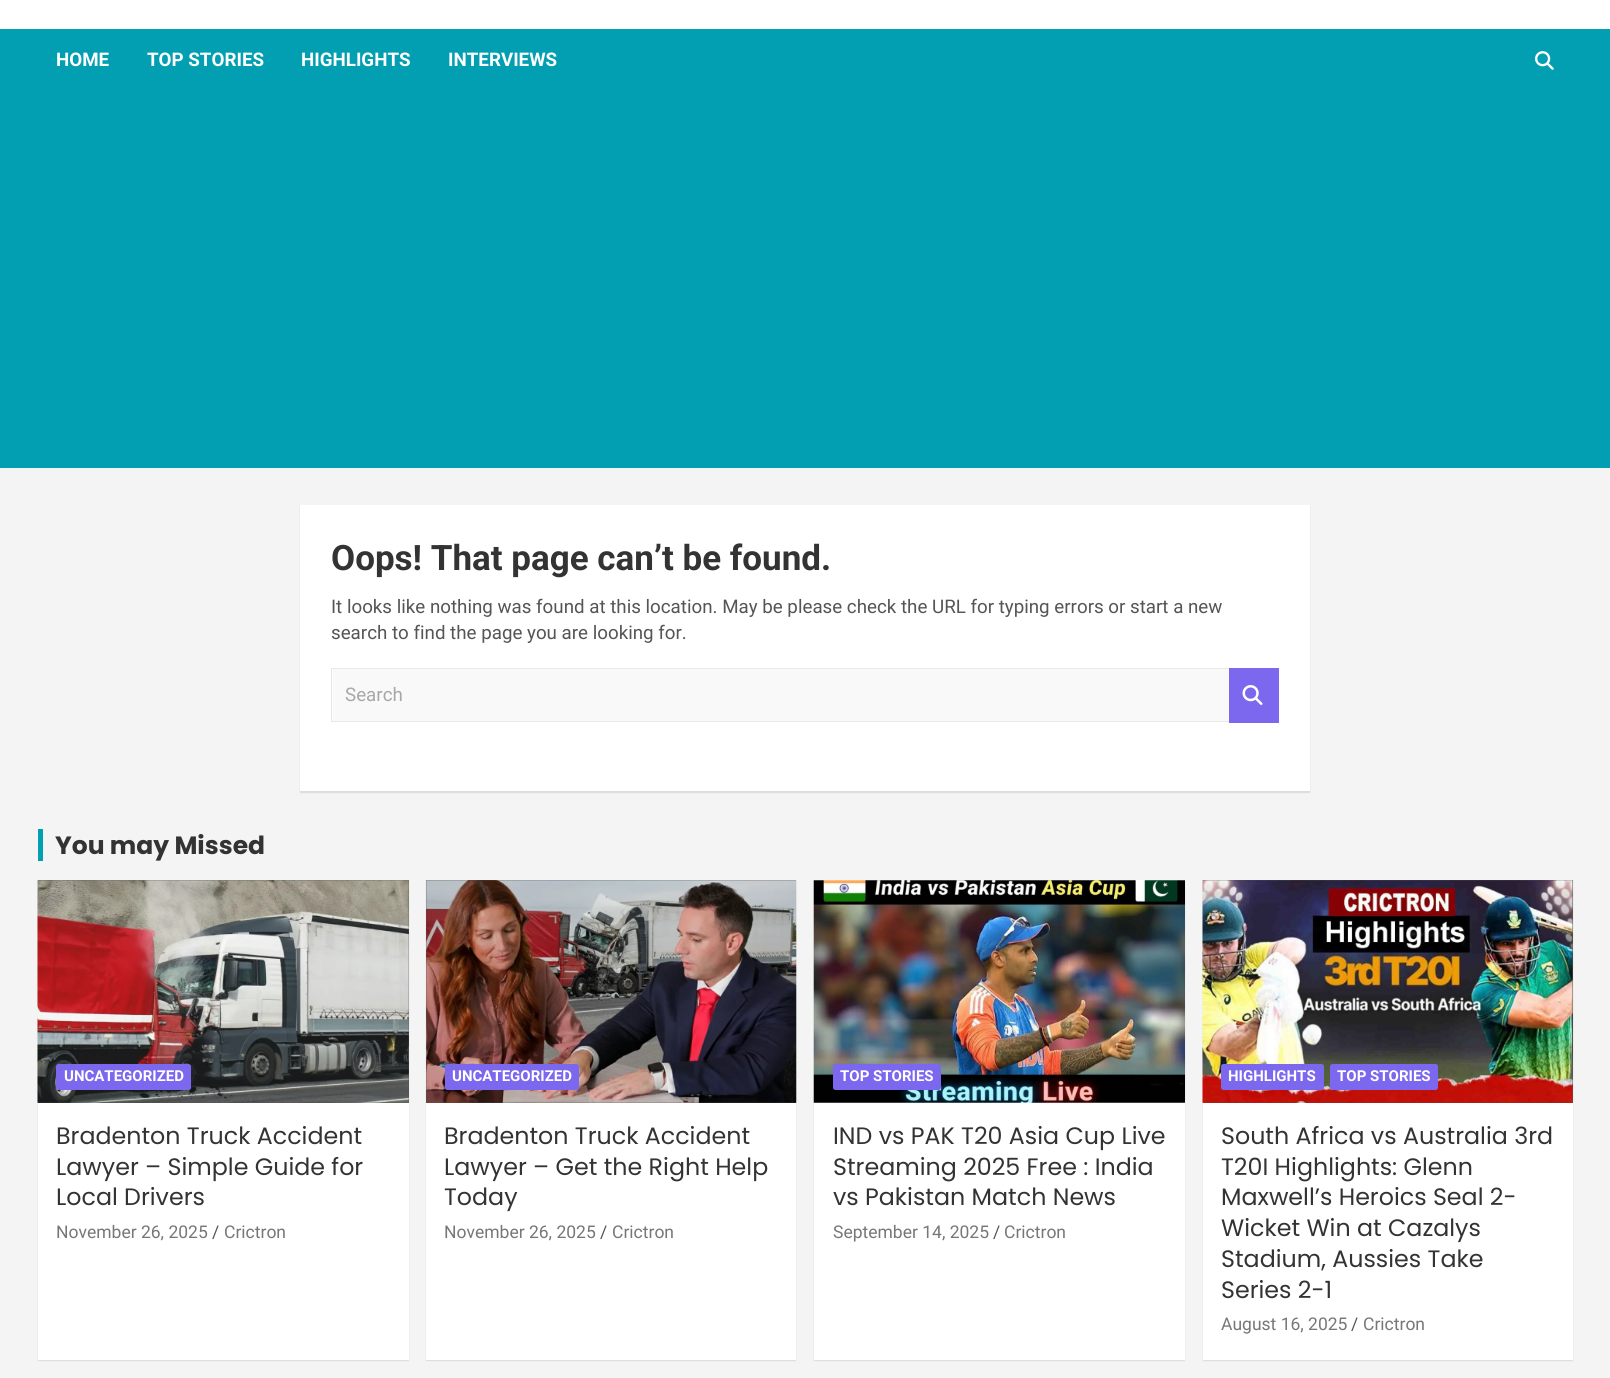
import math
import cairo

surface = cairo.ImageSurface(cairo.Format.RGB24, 1610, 1378)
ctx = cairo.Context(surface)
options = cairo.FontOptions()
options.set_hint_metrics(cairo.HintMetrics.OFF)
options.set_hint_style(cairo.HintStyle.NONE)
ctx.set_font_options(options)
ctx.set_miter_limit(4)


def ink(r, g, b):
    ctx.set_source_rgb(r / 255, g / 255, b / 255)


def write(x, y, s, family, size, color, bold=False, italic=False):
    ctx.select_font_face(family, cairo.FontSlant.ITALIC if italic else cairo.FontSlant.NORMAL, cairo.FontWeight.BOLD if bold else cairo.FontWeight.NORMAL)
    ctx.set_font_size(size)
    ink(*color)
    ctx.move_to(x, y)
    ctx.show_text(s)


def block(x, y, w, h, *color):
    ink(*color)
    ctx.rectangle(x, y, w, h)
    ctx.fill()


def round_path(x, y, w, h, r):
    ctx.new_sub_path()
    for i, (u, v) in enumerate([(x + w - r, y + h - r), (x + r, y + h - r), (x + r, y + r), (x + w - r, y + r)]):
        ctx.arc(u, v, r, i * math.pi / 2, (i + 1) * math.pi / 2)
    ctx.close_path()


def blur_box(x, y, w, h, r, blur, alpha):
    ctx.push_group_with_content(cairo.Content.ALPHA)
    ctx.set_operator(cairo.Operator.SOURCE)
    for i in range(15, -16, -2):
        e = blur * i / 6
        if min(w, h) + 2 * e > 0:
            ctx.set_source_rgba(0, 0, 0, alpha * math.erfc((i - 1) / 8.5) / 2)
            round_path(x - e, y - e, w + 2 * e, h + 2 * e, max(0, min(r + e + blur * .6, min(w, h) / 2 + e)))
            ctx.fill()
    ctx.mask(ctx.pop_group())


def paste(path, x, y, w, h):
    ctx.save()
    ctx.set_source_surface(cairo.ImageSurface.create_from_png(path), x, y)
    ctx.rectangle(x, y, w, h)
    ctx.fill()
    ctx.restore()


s1 = dict(family="Roboto", size=18.75, color=(255, 255, 255), bold=True)
s2 = dict(family="Roboto", size=35, color=(51, 51, 51), bold=True)
s3 = dict(family="Roboto", size=18.75, color=(85, 85, 85))
s4 = dict(family="Roboto", size=18.75, color=(167, 167, 167))
s5 = dict(family="Poppins", size=25, color=(51, 51, 51), bold=True)
s6 = dict(family="Roboto", size=15, color=(255, 255, 255), bold=True)
s7 = dict(family="Poppins", size=23.75, color=(51, 51, 51))
s8 = dict(family="Roboto", size=17.5, color=(119, 119, 119))
s9 = dict(family="Roboto", size=17.5, color=(85, 85, 85))

ink(244, 244, 244)
ctx.paint()
block(0, 0, 1610, 29, 255, 255, 255)
block(0, 29, 1610, 439, 2, 159, 178)
write(56, 66, "HOME", **s1)
write(147, 66, "TOP STORIES", **s1)
write(301, 66, "HIGHLIGHTS", **s1)
write(448, 66, "INTERVIEWS", **s1)
paste("pic1.png", 1535, 51, 19, 19)
ink(0, 0, 0)
blur_box(300, 506, 1010, 287, 0, 0.5, 0.1)
block(300, 505, 1010, 286, 255, 255, 255)
write(331, 570, "Oops! That page can’t be found.", **s2)
write(331, 613, "It looks like nothing was found at this location. May be please check the URL for typing errors or start a new", **s3)
write(331, 639, "search to find the page you are looking for.", **s3)
block(333, 669, 896, 52, 249, 249, 249)
ink(232, 232, 232)
ctx.new_path()
ctx.move_to(331, 668)
ctx.line_to(1229, 668)
ctx.line_to(1229, 669)
ctx.line_to(332, 669)
ctx.close_path()
ctx.fill()
ctx.new_path()
ctx.move_to(1229, 722)
ctx.line_to(331, 722)
ctx.line_to(332, 721)
ctx.line_to(1229, 721)
ctx.close_path()
ctx.fill()
ctx.set_source_rgba(0, 0, 0, 0.09)
ctx.new_path()
ctx.move_to(331, 722)
ctx.line_to(331, 668)
ctx.line_to(332, 669)
ctx.line_to(332, 721)
ctx.close_path()
ctx.fill()
write(345, 701, "Search", **s4)
block(1229, 668, 50, 55, 123, 104, 238)
paste("pic2.png", 1242, 685, 21, 20)
block(38, 829, 5, 32, 2, 159, 178)
write(55, 854, "You may Missed", **s5)
ink(0, 0, 0)
blur_box(38, 881, 371, 480, 0, 0.5, 0.1)
block(38, 1103, 371, 257, 255, 255, 255)
block(38, 880, 371, 223, 85, 85, 85)
paste("pic3.png", 37, 880, 372, 223)
ink(123, 104, 238)
round_path(56, 1064, 135, 26, 2.5)
ctx.fill()
write(64, 1081, "UNCATEGORIZED", **s6)
write(56, 1144, "Bradenton Truck Accident", **s7)
write(56, 1175, "Lawyer – Simple Guide for", **s7)
write(56, 1205, "Local Drivers", **s7)
write(56, 1238, "November 26, 2025", **s8)
write(212, 1238, "/", **s9)
write(224, 1238, "Crictron", **s8)
ink(0, 0, 0)
blur_box(426, 881, 370, 480, 0, 0.5, 0.1)
block(426, 1103, 370, 257, 255, 255, 255)
block(426, 880, 370, 223, 85, 85, 85)
paste("pic4.png", 426, 880, 371, 223)
ink(123, 104, 238)
round_path(445, 1064, 134, 26, 2.5)
ctx.fill()
write(452, 1081, "UNCATEGORIZED", **s6)
write(444, 1144, "Bradenton Truck Accident", **s7)
write(444, 1175, "Lawyer – Get the Right Help", **s7)
write(444, 1205, "Today", **s7)
write(444, 1238, "November 26, 2025", **s8)
write(600, 1238, "/", **s9)
write(612, 1238, "Crictron", **s8)
ink(0, 0, 0)
blur_box(814, 881, 371, 480, 0, 0.5, 0.1)
block(814, 880, 371, 480, 255, 255, 255)
paste("pic5.png", 813, 880, 372, 223)
ink(123, 104, 238)
round_path(833, 1064, 108, 26, 2.5)
ctx.fill()
write(840, 1081, "TOP STORIES", **s6)
write(833, 1144, "IND vs PAK T20 Asia Cup Live", **s7)
write(833, 1175, "Streaming 2025 Free : India", **s7)
write(833, 1205, "vs Pakistan Match News", **s7)
write(833, 1238, "September 14, 2025", **s8)
write(993, 1238, "/", **s9)
write(1004, 1238, "Crictron", **s8)
ink(0, 0, 0)
blur_box(1203, 881, 370, 480, 0, 0.5, 0.1)
block(1203, 1103, 370, 257, 255, 255, 255)
block(1203, 880, 370, 223, 85, 85, 85)
paste("pic6.png", 1202, 880, 371, 223)
ink(123, 104, 238)
round_path(1221, 1064, 103, 26, 2.5)
ctx.fill()
write(1228, 1081, "HIGHLIGHTS", **s6)
ink(123, 104, 238)
round_path(1330, 1064, 108, 26, 2.5)
ctx.fill()
write(1337, 1081, "TOP STORIES", **s6)
write(1221, 1144, "South Africa vs Australia 3rd", **s7)
write(1221, 1175, "T20I Highlights: Glenn", **s7)
write(1221, 1205, "Maxwell’s Heroics Seal 2-", **s7)
write(1221, 1236, "Wicket Win at Cazalys", **s7)
write(1221, 1267, "Stadium, Aussies Take", **s7)
write(1221, 1298, "Series 2-1", **s7)
write(1221, 1330, "August 16, 2025", **s8)
write(1351, 1330, "/", **s9)
write(1363, 1330, "Crictron", **s8)
surface.write_to_png("screenshot.png")
